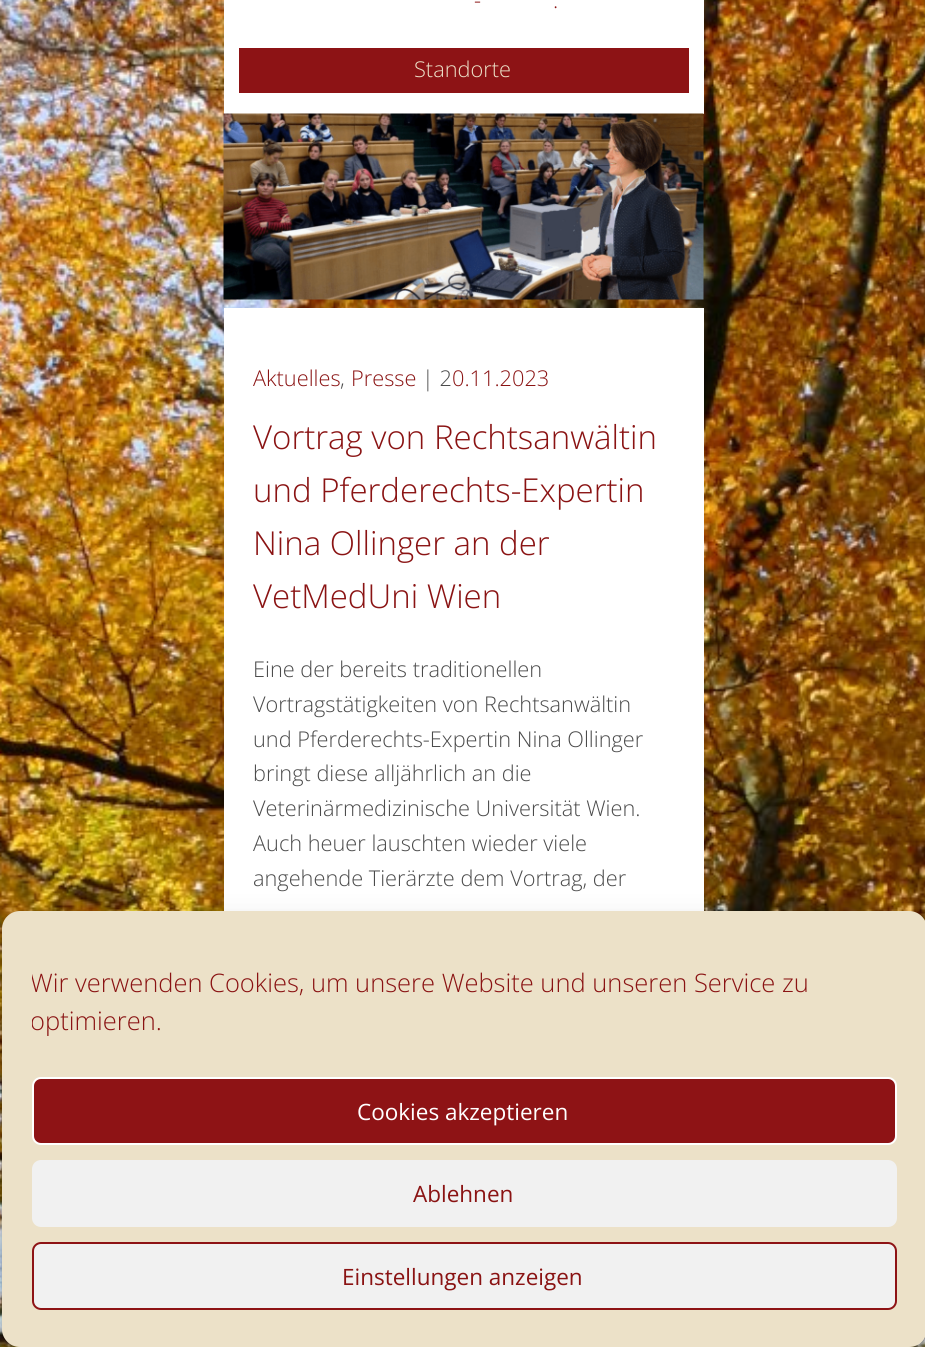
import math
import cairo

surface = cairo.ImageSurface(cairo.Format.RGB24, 925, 1347)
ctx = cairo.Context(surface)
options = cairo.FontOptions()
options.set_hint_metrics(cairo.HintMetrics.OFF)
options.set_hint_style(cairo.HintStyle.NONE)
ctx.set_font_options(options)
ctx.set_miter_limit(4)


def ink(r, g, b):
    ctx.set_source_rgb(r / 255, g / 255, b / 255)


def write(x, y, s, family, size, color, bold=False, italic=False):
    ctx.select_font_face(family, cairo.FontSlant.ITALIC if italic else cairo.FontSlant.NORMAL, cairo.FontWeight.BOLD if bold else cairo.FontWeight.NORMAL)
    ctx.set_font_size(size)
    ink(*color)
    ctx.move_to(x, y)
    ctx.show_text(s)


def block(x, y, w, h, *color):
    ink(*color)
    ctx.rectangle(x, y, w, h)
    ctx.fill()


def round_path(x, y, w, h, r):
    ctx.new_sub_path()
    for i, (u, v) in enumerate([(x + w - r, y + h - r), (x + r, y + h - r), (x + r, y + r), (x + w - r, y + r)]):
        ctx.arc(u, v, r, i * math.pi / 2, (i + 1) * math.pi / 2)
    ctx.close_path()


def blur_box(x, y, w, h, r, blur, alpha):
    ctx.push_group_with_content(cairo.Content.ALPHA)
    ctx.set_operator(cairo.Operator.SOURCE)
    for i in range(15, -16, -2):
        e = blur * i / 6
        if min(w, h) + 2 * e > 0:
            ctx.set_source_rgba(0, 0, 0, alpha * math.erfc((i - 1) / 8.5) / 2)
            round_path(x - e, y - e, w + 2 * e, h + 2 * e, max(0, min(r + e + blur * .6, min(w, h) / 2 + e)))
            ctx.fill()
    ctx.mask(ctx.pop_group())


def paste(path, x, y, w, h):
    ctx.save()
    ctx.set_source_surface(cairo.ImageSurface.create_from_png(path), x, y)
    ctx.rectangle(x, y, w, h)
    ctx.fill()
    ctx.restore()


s1 = dict(family="Open Sans Light", size=21.75, color=(138, 19, 19))
s2 = dict(family="Open Sans Light", size=21.75, color=(236, 225, 200))
s3 = dict(family="Open Sans Light", size=21.75, color=(75, 75, 75))
s4 = dict(family="Open Sans Light", size=33, color=(138, 19, 19))
s5 = dict(family="Open Sans Light", size=25.5, color=(138, 19, 19))
s6 = dict(family="Open Sans", size=22.5, color=(255, 255, 255))
s7 = dict(family="Open Sans", size=22.5, color=(138, 19, 19))

ink(255, 255, 255)
ctx.paint()
paste("pic1.png", 0, 0, 925, 1347)
block(224, 0, 480, 114, 255, 255, 255)
write(474, 8, "-", **s1)
write(553, 8, ".", **s1)
block(239, 48, 450, 45, 141, 19, 21)
write(414, 77, "Standorte", **s2)
paste("pic2.png", 223, 113, 481, 187)
block(224, 308, 480, 603, 255, 255, 255)
write(253, 386, "Aktuelles", **s1)
write(340, 386, ",", **s3)
write(351, 386, "Presse", **s1)
write(422, 386, "| 2", **s3)
write(452, 386, "0.11.2023", **s1)
write(253, 449, "Vortrag von Rechtsanwältin", **s4)
write(253, 502, "und Pferderechts-Expertin", **s4)
write(253, 555, "Nina Ollinger an der", **s4)
write(253, 608, "VetMedUni Wien", **s4)
write(253, 677, "Eine der bereits traditionellen", **s3)
write(253, 712, "Vortragstätigkeiten von Rechtsanwältin", **s3)
write(253, 747, "und Pferderechts-Expertin Nina Ollinger", **s3)
write(253, 781, "bringt diese alljährlich an die", **s3)
write(253, 816, "Veterinärmedizinische Universität Wien.", **s3)
write(253, 851, "Auch heuer lauschten wieder viele", **s3)
write(253, 886, "angehende Tierärzte dem Vortrag, der", **s3)
ctx.save()
ctx.set_fill_rule(cairo.FillRule.EVEN_ODD)
ctx.new_path()
ctx.move_to(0, 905)
ctx.line_to(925, 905)
ctx.line_to(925, 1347)
ctx.line_to(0, 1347)
ctx.close_path()
ctx.move_to(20, 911)
ctx.line_to(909, 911)
ctx.curve_to(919, 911, 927, 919, 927, 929)
ctx.line_to(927, 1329)
ctx.curve_to(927, 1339, 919, 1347, 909, 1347)
ctx.line_to(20, 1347)
ctx.curve_to(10, 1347, 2, 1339, 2, 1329)
ctx.line_to(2, 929)
ctx.curve_to(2, 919, 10, 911, 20, 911)
ctx.close_path()
ctx.clip()
ink(0, 0, 0)
blur_box(2, 920, 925, 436, 18, 4.5, 0.23)
ctx.restore()
ctx.save()
ctx.set_fill_rule(cairo.FillRule.EVEN_ODD)
ctx.new_path()
ctx.move_to(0, 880)
ctx.line_to(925, 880)
ctx.line_to(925, 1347)
ctx.line_to(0, 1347)
ctx.close_path()
ctx.move_to(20, 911)
ctx.line_to(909, 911)
ctx.curve_to(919, 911, 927, 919, 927, 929)
ctx.line_to(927, 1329)
ctx.curve_to(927, 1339, 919, 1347, 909, 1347)
ctx.line_to(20, 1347)
ctx.curve_to(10, 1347, 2, 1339, 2, 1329)
ctx.line_to(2, 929)
ctx.curve_to(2, 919, 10, 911, 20, 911)
ctx.close_path()
ctx.clip()
ink(0, 0, 0)
blur_box(2, 926, 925, 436, 18, 15, 0.19)
ctx.restore()
ink(236, 225, 200)
round_path(2, 911, 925, 436, 18)
ctx.fill()
ctx.save()
ctx.rectangle(32, 963, 865, 84)
ctx.clip()
write(30, 992, "Wir verwenden Cookies, um unsere Website und unseren Service zu", **s5)
write(30, 1030, "optimieren.", **s5)
ctx.restore()
ink(142, 19, 21)
round_path(33, 1078, 863, 66, 8)
ctx.fill_preserve()
ink(255, 255, 255)
ctx.stroke()
write(357, 1120, "Cookies akzeptieren", **s6)
ink(241, 241, 241)
round_path(33, 1161, 863, 65, 8)
ctx.fill_preserve()
ctx.stroke()
write(413, 1202, "Ablehnen", **s7)
ink(241, 241, 241)
round_path(33, 1243, 863, 66, 8)
ctx.fill_preserve()
ink(142, 19, 21)
ctx.stroke()
write(342, 1285, "Einstellungen anzeigen", **s7)
surface.write_to_png("screenshot.png")
